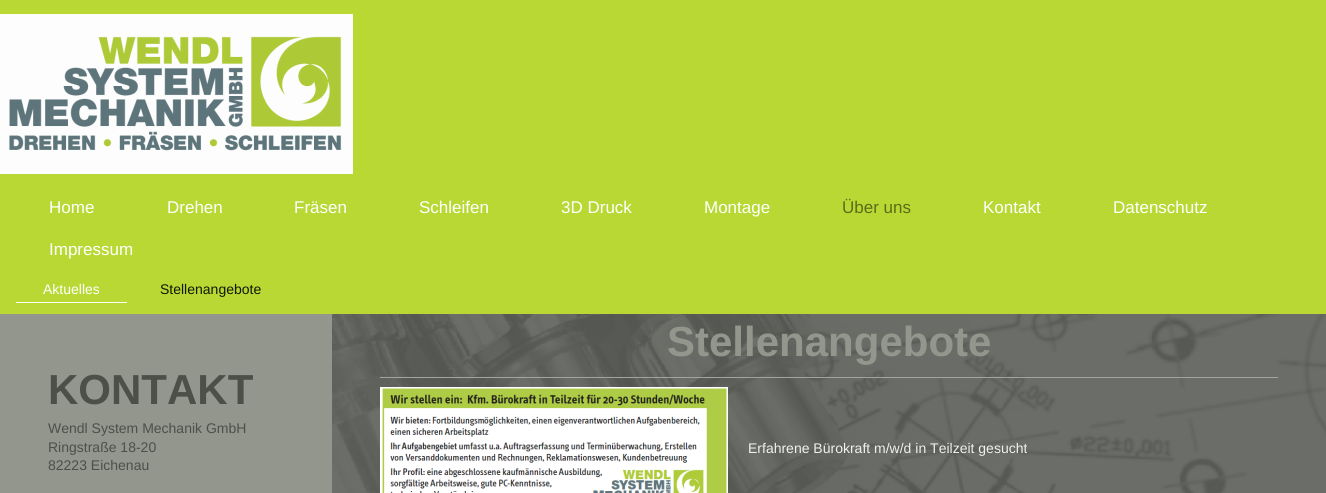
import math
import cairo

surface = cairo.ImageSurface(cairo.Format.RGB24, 1326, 493)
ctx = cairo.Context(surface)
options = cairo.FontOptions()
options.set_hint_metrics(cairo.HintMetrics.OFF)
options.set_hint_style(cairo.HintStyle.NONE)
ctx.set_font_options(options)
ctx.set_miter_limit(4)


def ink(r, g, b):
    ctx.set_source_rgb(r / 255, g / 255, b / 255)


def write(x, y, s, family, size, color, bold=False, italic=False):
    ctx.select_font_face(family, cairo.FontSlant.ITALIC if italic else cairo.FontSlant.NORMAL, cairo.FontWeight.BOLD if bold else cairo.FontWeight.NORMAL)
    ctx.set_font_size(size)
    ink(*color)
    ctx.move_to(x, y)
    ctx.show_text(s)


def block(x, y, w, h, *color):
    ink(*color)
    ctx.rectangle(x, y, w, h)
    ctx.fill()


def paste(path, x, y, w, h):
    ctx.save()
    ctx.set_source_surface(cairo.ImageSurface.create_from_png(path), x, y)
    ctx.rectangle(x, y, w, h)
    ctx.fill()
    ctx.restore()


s1 = dict(family="Liberation Sans", size=17, color=(255, 255, 255))
s2 = dict(family="Liberation Sans", size=17, color=(92, 108, 22))
s3 = dict(family="Liberation Sans", size=14, color=(255, 255, 255))
s4 = dict(family="Liberation Sans", size=14, color=(19, 22, 5))
s5 = dict(family="Liberation Sans", size=42, color=(77, 79, 73), bold=True)
s6 = dict(family="Liberation Sans", size=14, color=(77, 79, 73))
s7 = dict(family="Liberation Sans", size=42, color=(147, 150, 140), bold=True)
s8 = dict(family="Liberation Sans", size=14, color=(239, 239, 238))

ink(255, 255, 255)
ctx.paint()
paste("pic1.png", 332, 314, 994, 179)
block(0, 0, 1326, 314, 185, 216, 52)
paste("pic2.png", 0, 14, 353, 160)
write(49, 213, "Home", **s1)
write(167, 213, "Drehen", **s1)
write(294, 213, "Fräsen", **s1)
write(419, 213, "Schleifen", **s1)
write(561, 213, "3D Druck", **s1)
write(704, 213, "Montage", **s1)
write(842, 213, "Über uns", **s2)
write(983, 213, "Kontakt", **s1)
write(1113, 213, "Datenschutz", **s1)
write(49, 255, "Impressum", **s1)
block(16, 302, 111, 1, 255, 255, 255)
write(43, 294, "Aktuelles", **s3)
write(160, 294, "Stellenangebote", **s4)
block(0, 314, 332, 179, 147, 150, 140)
write(48, 404, "KONTAKT", **s5)
write(48, 433, "Wendl System Mechanik GmbH", **s6)
write(48, 452, "Ringstraße 18-20", **s6)
write(48, 470, "82223 Eichenau", **s6)
ctx.set_source_rgba(0.361, 0.376, 0.349, 0.9)
ctx.rectangle(332, 314, 994, 179)
ctx.fill()
write(667, 356, "Stellenangebote", **s7)
block(380, 377, 898, 1, 161, 165, 158)
paste("pic3.png", 380, 387, 348, 106)
write(748, 453, "Erfahrene Bürokraft m/w/d in Teilzeit gesucht", **s8)
surface.write_to_png("screenshot.png")
